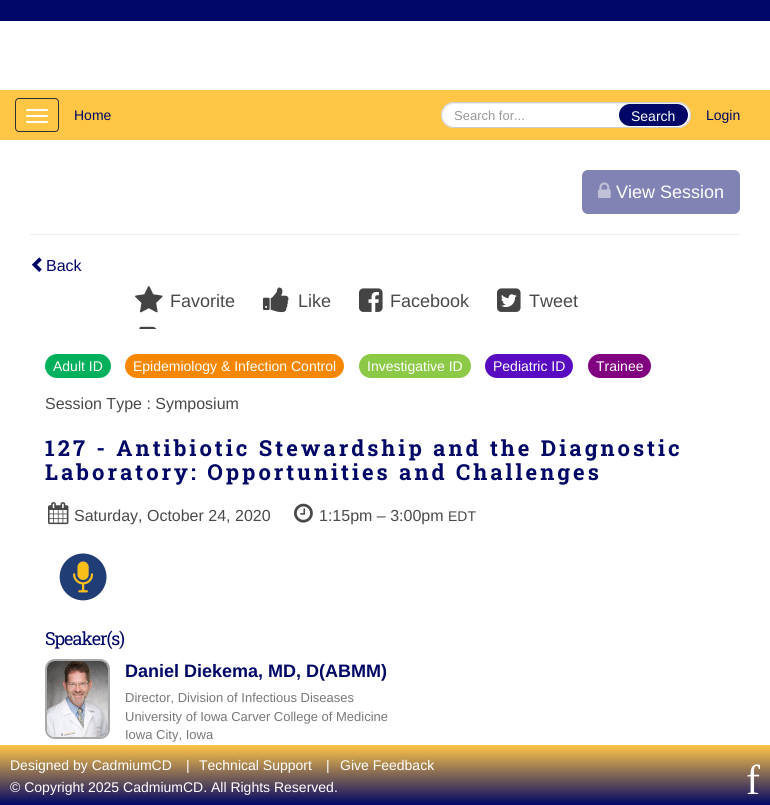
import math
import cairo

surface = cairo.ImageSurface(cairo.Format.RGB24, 770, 805)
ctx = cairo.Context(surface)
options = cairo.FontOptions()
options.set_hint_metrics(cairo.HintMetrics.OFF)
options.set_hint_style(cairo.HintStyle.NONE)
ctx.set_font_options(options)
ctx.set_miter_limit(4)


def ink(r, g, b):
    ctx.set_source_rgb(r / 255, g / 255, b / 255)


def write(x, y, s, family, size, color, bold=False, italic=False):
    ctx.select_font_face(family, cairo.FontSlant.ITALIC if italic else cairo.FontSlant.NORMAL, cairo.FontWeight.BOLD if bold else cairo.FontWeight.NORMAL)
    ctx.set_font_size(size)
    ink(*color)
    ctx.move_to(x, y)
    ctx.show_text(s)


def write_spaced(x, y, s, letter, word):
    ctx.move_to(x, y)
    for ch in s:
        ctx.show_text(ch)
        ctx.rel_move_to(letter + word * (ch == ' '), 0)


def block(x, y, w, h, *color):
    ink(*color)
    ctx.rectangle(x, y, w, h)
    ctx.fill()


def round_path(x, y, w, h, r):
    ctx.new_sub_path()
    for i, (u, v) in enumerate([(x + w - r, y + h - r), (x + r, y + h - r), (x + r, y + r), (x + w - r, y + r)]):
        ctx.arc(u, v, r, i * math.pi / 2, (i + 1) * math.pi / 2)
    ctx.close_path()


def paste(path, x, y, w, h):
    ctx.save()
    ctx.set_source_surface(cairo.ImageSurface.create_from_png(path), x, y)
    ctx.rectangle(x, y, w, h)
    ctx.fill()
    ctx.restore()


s1 = dict(family="Liberation Sans", size=14, color=(0, 6, 102))
s2 = dict(family="Liberation Sans", size=13, color=(153, 153, 153))
s3 = dict(family="Liberation Sans", size=14, color=(255, 255, 255))
s4 = dict(family="Liberation Sans", size=18, color=(255, 255, 255))
s5 = dict(family="Liberation Sans", size=16, color=(0, 6, 102))
s6 = dict(family="Liberation Sans", size=18, color=(73, 73, 73))
s7 = dict(family="Liberation Sans", size=16, color=(73, 73, 73))
s8 = dict(family="Liberation Sans", size=14, color=(73, 73, 73))
s9 = dict(family="Liberation Sans", size=18, color=(0, 6, 102), bold=True)
s10 = dict(family="Liberation Sans", size=13, color=(119, 119, 119))
s11 = dict(family="Liberation Serif", size=42, color=(255, 255, 255))

ink(255, 255, 255)
ctx.paint()
block(0, 0, 770, 21, 0, 6, 102)
block(0, 90, 770, 50, 255, 197, 69)
round_path(15.5, 98.5, 43, 33, 3.5)
ink(51, 51, 51)
ctx.set_line_width(1)
ctx.stroke()
ink(255, 255, 255)
round_path(26, 109, 22, 2, 1)
ctx.fill()
round_path(26, 115, 22, 2, 1)
ctx.fill()
round_path(26, 121, 22, 2, 1)
ctx.fill()
write(74, 120, "Home", **s1)
ink(255, 255, 255)
round_path(441, 102, 250, 26, 13)
ctx.fill()
ink(236, 236, 236)
ctx.new_path()
ctx.move_to(454, 104)
ctx.line_to(678, 104)
ctx.curve_to(686, 104, 690, 110, 690, 115)
ctx.curve_to(690, 109, 685, 103, 678, 103)
ctx.line_to(454, 103)
ctx.curve_to(447, 103, 441, 110, 442, 117)
ctx.curve_to(442, 111, 447, 104, 454, 104)
ctx.close_path()
ctx.fill()
round_path(441.5, 102.5, 249, 25, 12.5)
ink(204, 204, 204)
ctx.stroke()
write(454, 120, "Search for...", **s2)
ink(0, 6, 102)
round_path(619, 104, 69, 22, 11)
ctx.fill()
write(631, 121, "Search", **s3)
write(706, 120, "Login", **s1)
ink(128, 131, 179)
round_path(582, 170, 158, 44, 6)
ctx.fill()
paste("pic1.png", 598, 182, 13, 16)
write(616, 198, "View Session", **s4)
block(30, 234, 710, 1, 238, 238, 238)
paste("pic2.png", 31, 257, 11, 15)
write(46, 271, "Back", **s5)
paste("pic3.png", 135, 286, 28, 27)
write(170, 307, "Favorite", **s6)
paste("pic4.png", 263, 287, 26, 26)
write(298, 307, "Like", **s6)
paste("pic5.png", 359, 288, 24, 24)
write(390, 307, "Facebook", **s6)
paste("pic6.png", 497, 288, 24, 24)
write(529, 307, "Tweet", **s6)
paste("pic7.png", 139, 326, 18, 3)
ink(0, 176, 91)
round_path(45, 354, 66, 24, 12)
ctx.fill()
write(53, 371, "Adult ID", **s3)
ink(247, 135, 1)
round_path(125, 354, 219, 24, 12)
ctx.fill()
write(133, 371, "Epidemiology & Infection Control", **s3)
ink(140, 201, 71)
round_path(359, 354, 112, 24, 12)
ctx.fill()
write(367, 371, "Investigative ID", **s3)
ink(88, 11, 193)
round_path(485, 354, 88, 24, 12)
ctx.fill()
write(493, 371, "Pediatric ID", **s3)
ink(128, 0, 128)
round_path(588, 354, 63, 24, 12)
ctx.fill()
write(596, 371, "Trainee", **s3)
write(45, 409, "Session Type : Symposium", **s7)
ctx.select_font_face("Roboto Slab", cairo.FontSlant.NORMAL, cairo.FontWeight.BOLD)
ctx.set_font_size(22)
ink(0, 6, 102)
write_spaced(45, 456, "127 - Antibiotic Stewardship and the Diagnostic", 3, 0)
write_spaced(45, 480, "Laboratory: Opportunities and Challenges", 3, 0)
paste("pic8.png", 48, 502, 21, 23)
write(74, 521, "Saturday, October 24, 2020", **s7)
paste("pic9.png", 294, 503, 19, 20)
write(319, 521, "1:15pm – 3:00pm", **s7)
write(448, 521, "EDT", **s8)
paste("pic10.png", 59, 553, 48, 48)
ctx.select_font_face("Roboto Slab")
ctx.set_font_size(18)
ink(0, 6, 102)
write_spaced(45, 645, "Speaker(s)", -1, 0)
round_path(46, 660, 63, 78, 9)
ink(169, 169, 169)
ctx.set_line_width(2)
ctx.stroke()
paste("pic11.png", 47, 661, 61, 76)
write(125, 677, "Daniel Diekema, MD, D(ABMM)", **s9)
write(125, 702, "Director, Division of Infectious Diseases", **s10)
write(125, 721, "University of Iowa Carver College of Medicine", **s10)
write(125, 739, "Iowa City, Iowa", **s10)
gradient = cairo.LinearGradient(385, 745, 385, 805)
gradient.add_color_stop_rgba(0, 1, 0.773, 0.271, 1)
gradient.add_color_stop_rgba(1, 0, 0.024, 0.4, 1)
ctx.set_source(gradient)
ctx.rectangle(0, 745, 770, 60)
ctx.fill()
write(10, 770, "Designed by CadmiumCD", **s3)
write(186, 770, "|", **s3)
write(199, 770, "Technical Support", **s3)
write(326, 770, "|", **s3)
write(340, 770, "Give Feedback", **s3)
write(10, 792, "© Copyright 2025 CadmiumCD. All Rights Reserved.", **s3)
write(746, 794, "f", **s11)
surface.write_to_png("screenshot.png")
